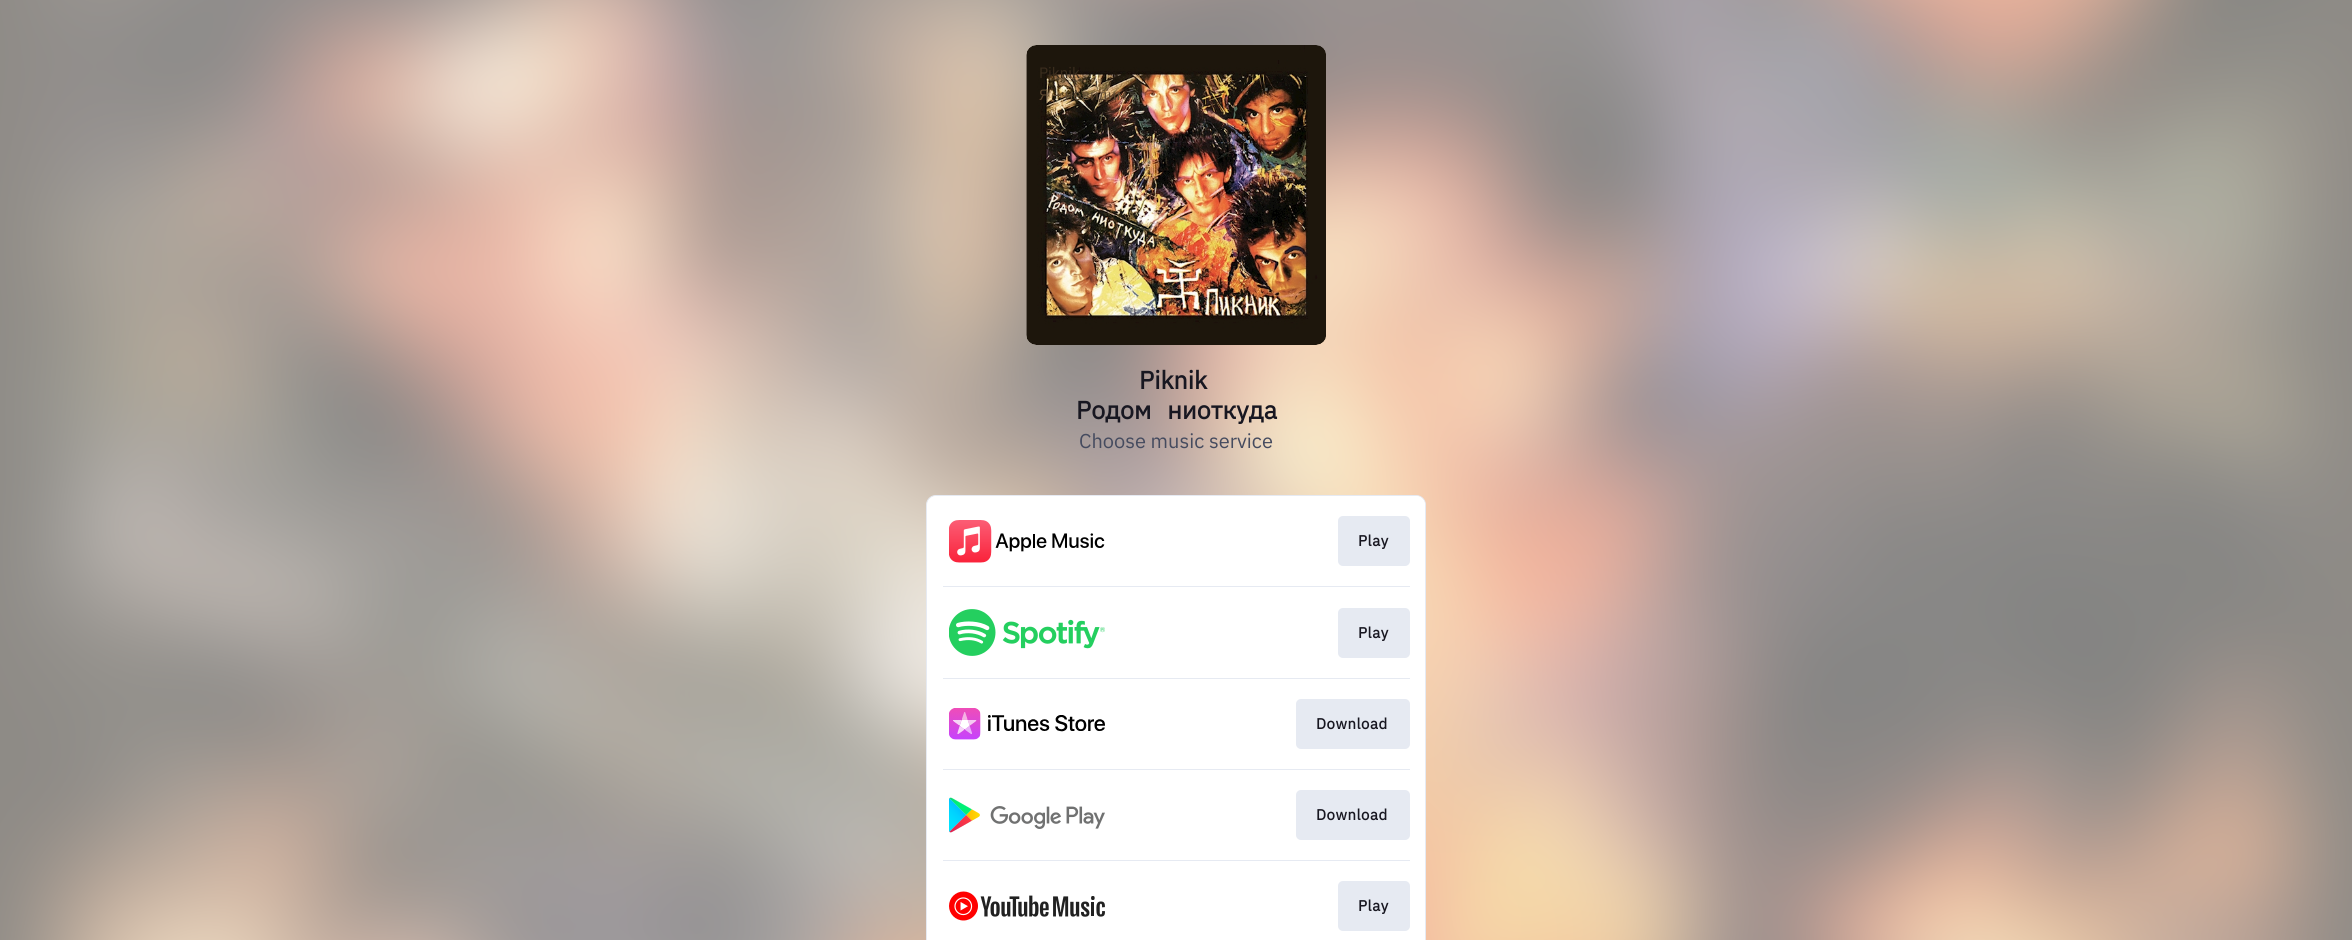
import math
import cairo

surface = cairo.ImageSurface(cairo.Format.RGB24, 2352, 940)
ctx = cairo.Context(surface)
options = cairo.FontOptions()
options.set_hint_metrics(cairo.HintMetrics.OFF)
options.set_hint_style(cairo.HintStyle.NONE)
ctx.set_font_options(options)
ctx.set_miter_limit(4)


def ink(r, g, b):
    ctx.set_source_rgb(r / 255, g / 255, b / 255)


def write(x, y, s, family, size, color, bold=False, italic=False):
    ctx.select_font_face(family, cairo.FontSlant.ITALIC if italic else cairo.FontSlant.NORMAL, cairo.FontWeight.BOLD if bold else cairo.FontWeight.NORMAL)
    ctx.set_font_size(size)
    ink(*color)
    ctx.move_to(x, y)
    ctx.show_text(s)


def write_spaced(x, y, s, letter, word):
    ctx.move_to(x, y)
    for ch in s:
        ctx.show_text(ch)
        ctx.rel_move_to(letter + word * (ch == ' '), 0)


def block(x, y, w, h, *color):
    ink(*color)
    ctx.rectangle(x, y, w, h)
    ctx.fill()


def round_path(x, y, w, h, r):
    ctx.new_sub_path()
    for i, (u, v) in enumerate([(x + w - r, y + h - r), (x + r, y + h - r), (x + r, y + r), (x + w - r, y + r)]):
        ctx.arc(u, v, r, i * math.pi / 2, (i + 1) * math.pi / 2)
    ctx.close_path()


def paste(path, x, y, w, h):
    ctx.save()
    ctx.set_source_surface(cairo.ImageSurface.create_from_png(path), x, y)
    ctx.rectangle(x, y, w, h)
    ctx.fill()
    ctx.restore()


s1 = dict(family="IBM Plex Sans", size=15, color=(59, 45, 30))
s2 = dict(family="IBM Plex Sans", size=15, color=(96, 75, 51))
s3 = dict(family="IBM Plex Sans", size=25, color=(24, 23, 33), bold=True)
s4 = dict(family="IBM Plex Sans", size=20, color=(69, 75, 95))

ink(255, 255, 255)
ctx.paint()
paste("pic1.png", 0, 0, 2352, 940)
paste("pic2.png", 1026, 45, 300, 300)
write(1039, 78, "Piknik", **s1)
write(1039, 100, "Я – невидим", **s2)
write(1139, 389, "Piknik", **s3)
write_spaced(1076, 419, "Родом ниоткуда", 0, 10)
write(1079, 448, "Choose music service", **s4)
ink(255, 255, 255)
round_path(926.5, 495.5, 499, 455, 9.5)
ctx.fill_preserve()
ink(230, 234, 242)
ctx.set_line_width(1)
ctx.stroke()
ink(255, 255, 255)
round_path(928, 496, 497, 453, 9)
ctx.fill()
paste("pic3.png", 949, 520, 156, 43)
ink(230, 234, 242)
round_path(1338, 516, 72, 50, 5)
ctx.fill()
ctx.select_font_face("IBM Plex Sans", cairo.FontSlant.NORMAL, cairo.FontWeight.BOLD)
ctx.set_font_size(15)
ink(24, 23, 33)
write_spaced(1358, 546, "Play", 0.5, 0)
block(943, 586, 467, 1, 230, 234, 242)
paste("pic4.png", 949, 609, 156, 47)
round_path(1338, 608, 72, 50, 5)
ctx.fill()
ink(24, 23, 33)
write_spaced(1358, 638, "Play", 0.5, 0)
block(943, 678, 467, 1, 230, 234, 242)
paste("pic5.png", 949, 708, 156, 32)
round_path(1296, 699, 114, 50, 5)
ctx.fill()
ink(24, 23, 33)
write_spaced(1316, 729, "Download", 0.5, 0)
block(943, 769, 467, 1, 230, 234, 242)
paste("pic6.png", 949, 797, 156, 36)
round_path(1296, 790, 114, 50, 5)
ctx.fill()
ink(24, 23, 33)
write_spaced(1316, 820, "Download", 0.5, 0)
block(943, 860, 467, 1, 230, 234, 242)
paste("pic7.png", 949, 891, 156, 30)
round_path(1338, 881, 72, 50, 5)
ctx.fill()
ink(24, 23, 33)
write_spaced(1358, 911, "Play", 0.5, 0)
surface.write_to_png("screenshot.png")
